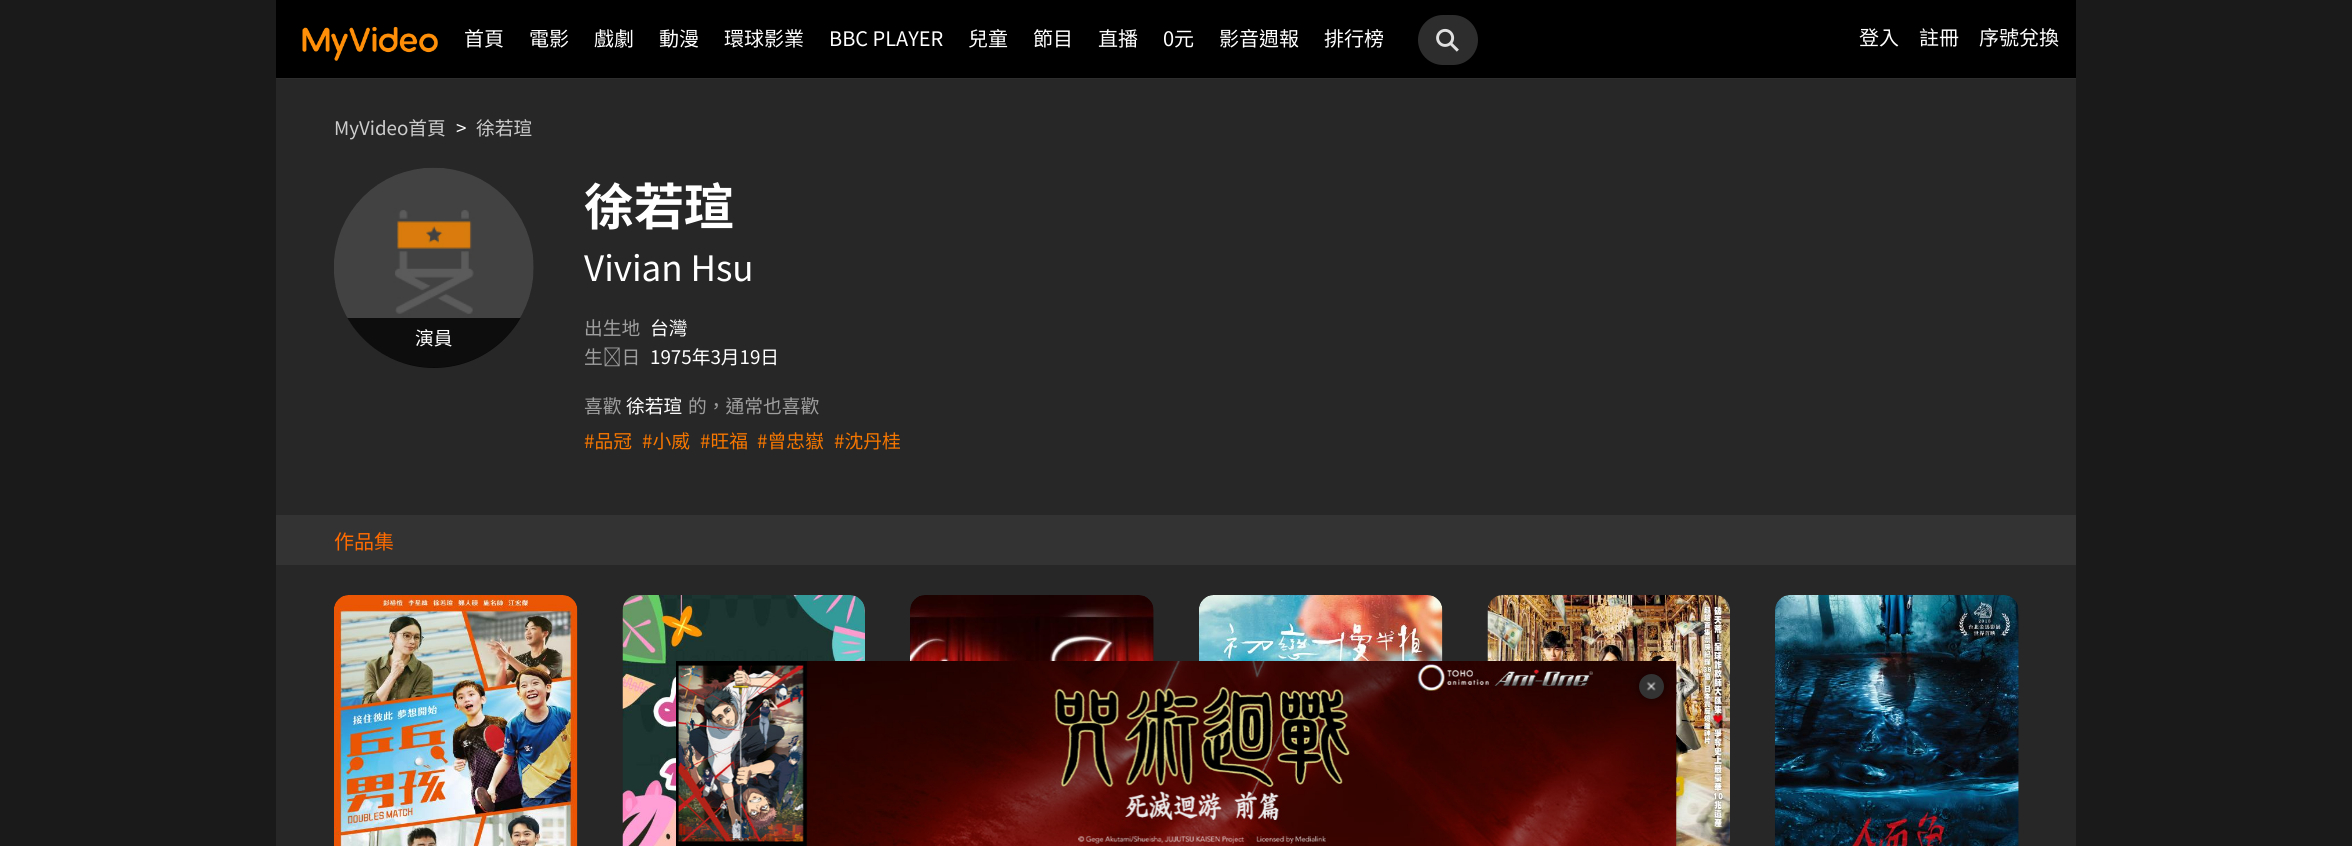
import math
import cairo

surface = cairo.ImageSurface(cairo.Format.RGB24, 2352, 846)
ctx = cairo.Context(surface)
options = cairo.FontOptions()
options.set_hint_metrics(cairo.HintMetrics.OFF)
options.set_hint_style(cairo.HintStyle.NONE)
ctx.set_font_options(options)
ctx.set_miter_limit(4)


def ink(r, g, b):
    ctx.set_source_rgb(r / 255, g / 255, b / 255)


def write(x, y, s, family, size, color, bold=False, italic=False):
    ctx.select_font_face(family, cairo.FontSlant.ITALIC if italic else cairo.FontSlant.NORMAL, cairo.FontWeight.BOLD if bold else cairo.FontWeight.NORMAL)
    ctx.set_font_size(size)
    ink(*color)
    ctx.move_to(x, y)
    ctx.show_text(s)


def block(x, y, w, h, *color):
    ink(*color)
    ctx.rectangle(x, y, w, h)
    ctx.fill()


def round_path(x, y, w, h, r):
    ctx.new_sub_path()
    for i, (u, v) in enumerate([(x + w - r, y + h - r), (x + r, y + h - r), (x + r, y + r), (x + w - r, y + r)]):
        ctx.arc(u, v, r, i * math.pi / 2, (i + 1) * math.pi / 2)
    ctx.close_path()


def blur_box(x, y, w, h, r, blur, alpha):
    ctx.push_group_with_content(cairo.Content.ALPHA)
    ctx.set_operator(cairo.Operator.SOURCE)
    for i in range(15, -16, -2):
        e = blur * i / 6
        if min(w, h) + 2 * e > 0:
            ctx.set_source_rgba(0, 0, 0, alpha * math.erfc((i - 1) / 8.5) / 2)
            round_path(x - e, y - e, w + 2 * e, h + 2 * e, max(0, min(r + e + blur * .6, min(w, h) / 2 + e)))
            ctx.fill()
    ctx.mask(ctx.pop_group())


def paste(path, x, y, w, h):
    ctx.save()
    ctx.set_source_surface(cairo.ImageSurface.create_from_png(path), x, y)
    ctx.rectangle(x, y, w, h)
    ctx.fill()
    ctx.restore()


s1 = dict(family="Noto Sans TC", size=20, color=(255, 255, 255))
s2 = dict(family="Noto Sans TC", size=18.75, color=(204, 204, 204))
s3 = dict(family="Noto Sans TC", size=18.75, color=(255, 255, 255))
s4 = dict(family="Noto Sans TC", size=50, color=(255, 255, 255), bold=True)
s5 = dict(family="Noto Sans TC", size=35, color=(255, 255, 255))
s6 = dict(family="Noto Sans TC", size=18.75, color=(158, 158, 158))
s7 = dict(family="Noto Sans TC", size=18.75, color=(245, 118, 0))
s8 = dict(family="Noto Sans TC", size=20, color=(255, 107, 0))

ink(26, 26, 26)
ctx.paint()
block(276, 0, 1800, 78, 0, 0, 0)
block(276, 78, 1800, 1, 45, 45, 45)
paste("pic1.png", 302, 26, 136, 35)
write(464, 46, "首頁", **s1)
write(529, 46, "電影", **s1)
write(594, 46, "戲劇", **s1)
write(659, 46, "動漫", **s1)
write(724, 46, "環球影業", **s1)
write(829, 46, "BBC PLAYER", **s1)
write(968, 46, "兒童", **s1)
write(1033, 46, "節目", **s1)
write(1098, 46, "直播", **s1)
write(1163, 46, "0元", **s1)
write(1219, 46, "影音週報", **s1)
write(1324, 46, "排行榜", **s1)
ink(45, 45, 45)
round_path(1418, 15, 60, 50, 25)
ctx.fill()
paste("pic2.png", 1436, 28, 23, 24)
write(1859, 45, "登入", **s1)
write(1919, 45, "註冊", **s1)
write(1979, 45, "序號兌換", **s1)
block(276, 79, 1800, 767, 39, 39, 39)
paste("pic8.png", 622, 595, 243, 251)
paste("pic11.png", 1487, 595, 243, 251)
paste("pic4.png", 676, 661, 1001, 185)
ink(0, 0, 0)
blur_box(1639, 674, 25, 25, 12.5, 6, 0.5)
ink(51, 51, 51)
ctx.arc(1651.5, 686.5, 12.5, 0, 2 * math.pi)
ctx.fill()
paste("pic3.png", 1646, 681, 10, 10)
write(334, 135, "MyVideo首頁", **s2)
write(456, 135, ">", **s3)
write(476, 135, "徐若瑄", **s2)
paste("pic5.png", 334, 167, 200, 201)
paste("pic6.png", 334, 167, 200, 201)
ctx.save()
round_path(334, 168, 200, 200, 100)
ctx.clip()
ctx.set_source_rgba(0, 0, 0, 0.8)
ctx.rectangle(347, 318, 174, 50)
ctx.fill()
ctx.restore()
write(415, 345, "演員", **s3)
write(584, 225, "徐若瑄", **s4)
write(584, 281, "Vivian Hsu", **s5)
write(584, 335, "出生地", **s6)
write(650, 335, "台灣", **s3)
write(584, 364, "生 日", **s6)
write(650, 364, "1975年3月19日", **s3)
write(584, 413, "喜歡", **s6)
write(626, 413, "徐若瑄", **s3)
write(688, 413, "的，通常也喜歡", **s6)
write(584, 448, "#品冠", **s7)
write(642, 448, "#小威", **s7)
write(700, 448, "#旺福", **s7)
write(757, 448, "#曾忠嶽", **s7)
write(834, 448, "#沈丹桂", **s7)
block(276, 515, 1800, 50, 51, 51, 51)
write(334, 549, "作品集", **s8)
paste("pic7.png", 334, 595, 244, 251)
paste("pic9.png", 910, 595, 244, 66)
paste("pic10.png", 1199, 595, 244, 66)
paste("pic12.png", 1775, 595, 244, 251)
surface.write_to_png("screenshot.png")
